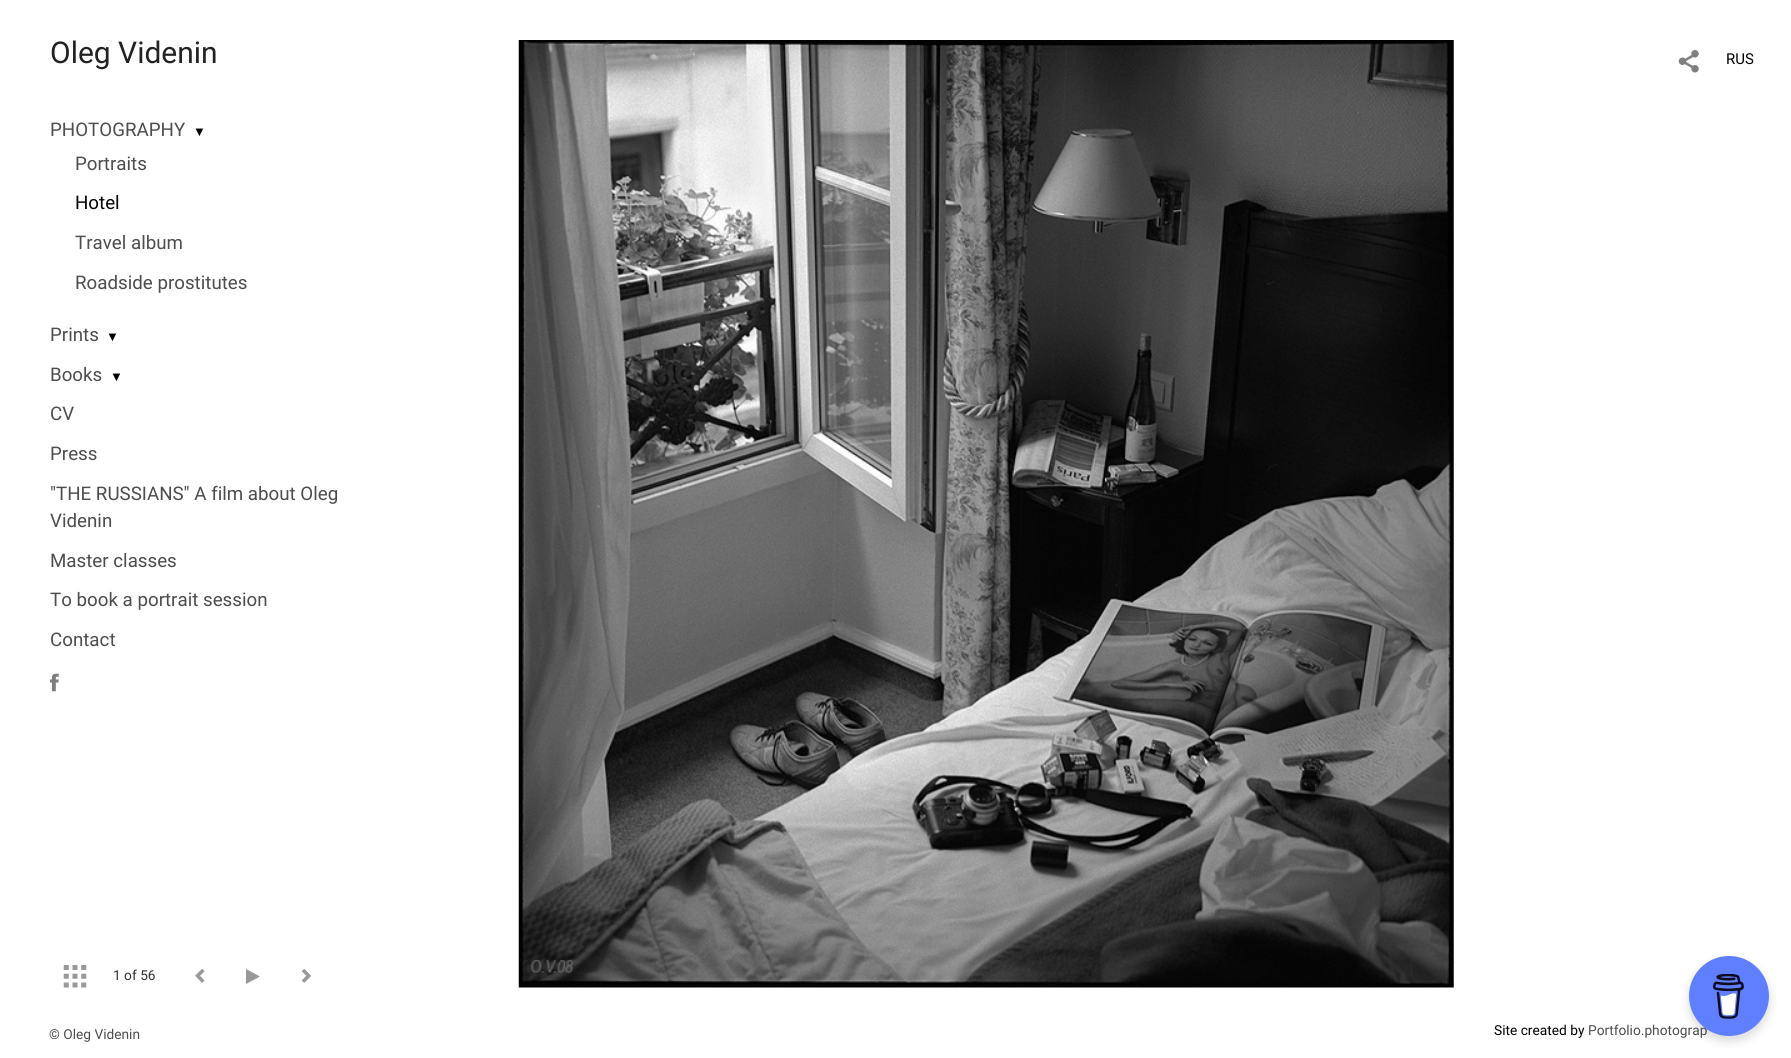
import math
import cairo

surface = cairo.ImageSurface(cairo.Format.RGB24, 1791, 1058)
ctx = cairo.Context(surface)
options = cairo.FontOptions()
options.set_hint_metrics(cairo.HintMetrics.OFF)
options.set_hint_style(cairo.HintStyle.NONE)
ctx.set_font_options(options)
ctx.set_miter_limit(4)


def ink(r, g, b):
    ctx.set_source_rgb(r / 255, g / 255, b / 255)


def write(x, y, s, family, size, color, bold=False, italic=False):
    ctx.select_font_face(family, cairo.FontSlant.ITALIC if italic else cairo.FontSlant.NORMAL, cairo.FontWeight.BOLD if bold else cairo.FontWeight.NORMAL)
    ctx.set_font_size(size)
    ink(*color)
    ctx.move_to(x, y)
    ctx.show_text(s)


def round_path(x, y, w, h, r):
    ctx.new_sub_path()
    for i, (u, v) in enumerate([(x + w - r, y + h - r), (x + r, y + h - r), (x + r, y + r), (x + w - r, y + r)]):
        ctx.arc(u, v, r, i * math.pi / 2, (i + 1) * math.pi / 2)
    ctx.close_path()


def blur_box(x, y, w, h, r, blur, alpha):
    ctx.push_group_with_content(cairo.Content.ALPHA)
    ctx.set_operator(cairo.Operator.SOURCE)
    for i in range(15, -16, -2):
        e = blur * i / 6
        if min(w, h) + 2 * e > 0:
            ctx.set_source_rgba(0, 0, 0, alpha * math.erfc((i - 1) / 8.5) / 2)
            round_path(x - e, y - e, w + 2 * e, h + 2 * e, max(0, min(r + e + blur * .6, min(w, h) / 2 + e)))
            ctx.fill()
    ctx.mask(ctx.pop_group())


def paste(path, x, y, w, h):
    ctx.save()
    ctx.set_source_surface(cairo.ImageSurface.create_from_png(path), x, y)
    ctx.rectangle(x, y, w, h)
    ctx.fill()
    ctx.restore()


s1 = dict(family="Roboto", size=30, color=(34, 34, 34))
s2 = dict(family="Roboto", size=18.75, color=(77, 77, 77))
s3 = dict(family="Liberation Serif", size=13, color=(0, 0, 0))
s4 = dict(family="Roboto", size=18.75, color=(0, 0, 0))
s5 = dict(family="Roboto", size=13.75, color=(51, 51, 51))
s6 = dict(family="Roboto", size=15, color=(0, 0, 0))
s7 = dict(family="Roboto", size=13.75, color=(77, 77, 77))
s8 = dict(family="Roboto", size=13.75, color=(0, 0, 0))

ink(255, 255, 255)
ctx.paint()
write(50, 63, "Oleg Videnin", **s1)
write(50, 136, "PHOTOGRAPHY", **s2)
write(193, 136, "▼", **s3)
write(75, 170, "Portraits", **s2)
write(75, 209, "Hotel", **s4)
write(75, 249, "Travel album", **s2)
write(75, 289, "Roadside prostitutes", **s2)
write(50, 341, "Prints", **s2)
write(106, 341, "▼", **s3)
write(50, 381, "Books", **s2)
write(110, 381, "▼", **s3)
write(50, 420, "CV", **s2)
write(50, 460, "Press", **s2)
write(50, 500, "\"THE RUSSIANS\" A film about Oleg", **s2)
write(50, 527, "Videnin", **s2)
write(50, 567, "Master classes", **s2)
write(50, 606, "To book a portrait session", **s2)
write(50, 646, "Contact", **s2)
paste("pic1.png", 50, 673, 9, 19)
paste("pic2.png", 63, 965, 24, 23)
write(113, 980, "1 of 56", **s5)
paste("pic3.png", 195, 969, 10, 14)
ink(153, 153, 153)
ctx.new_path()
ctx.move_to(260, 976.5)
ctx.line_to(246, 984)
ctx.line_to(246, 969)
ctx.close_path()
ctx.fill()
paste("pic4.png", 301, 968, 11, 15)
paste("pic5.png", 518, 40, 936, 948)
paste("pic6.png", 1678, 50, 21, 23)
write(1726, 64, "RUS", **s6)
write(49, 1039, "© Oleg Videnin", **s7)
write(1494, 1035, "Site created by", **s8)
write(1588, 1035, "Portfolio.photograp", **s7)
ink(0, 0, 0)
blur_box(1689, 961, 80, 80, 40, 5, 0.15)
ink(95, 127, 255)
ctx.arc(1729, 996, 40, 0, 2 * math.pi)
ctx.fill()
paste("pic7.png", 1713, 974, 31, 45)
surface.write_to_png("screenshot.png")
